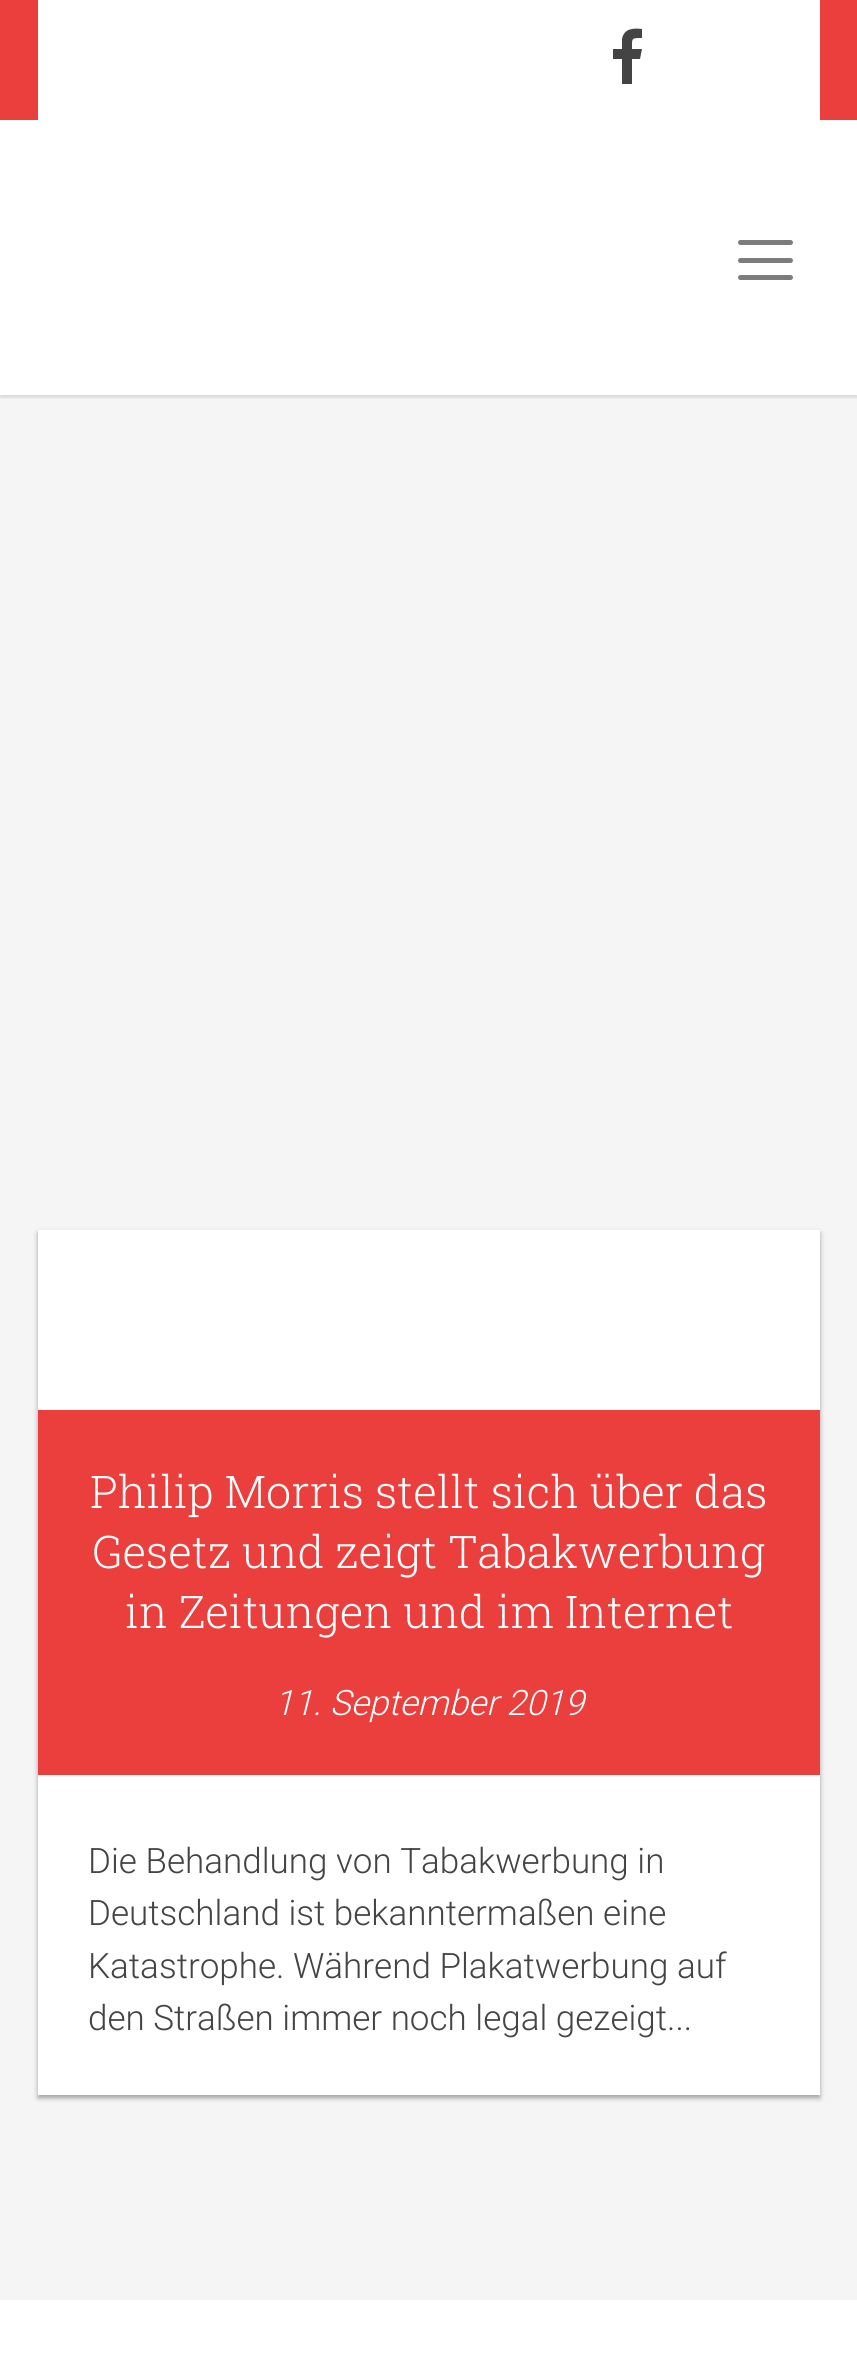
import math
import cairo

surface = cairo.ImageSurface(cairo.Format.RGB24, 857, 2376)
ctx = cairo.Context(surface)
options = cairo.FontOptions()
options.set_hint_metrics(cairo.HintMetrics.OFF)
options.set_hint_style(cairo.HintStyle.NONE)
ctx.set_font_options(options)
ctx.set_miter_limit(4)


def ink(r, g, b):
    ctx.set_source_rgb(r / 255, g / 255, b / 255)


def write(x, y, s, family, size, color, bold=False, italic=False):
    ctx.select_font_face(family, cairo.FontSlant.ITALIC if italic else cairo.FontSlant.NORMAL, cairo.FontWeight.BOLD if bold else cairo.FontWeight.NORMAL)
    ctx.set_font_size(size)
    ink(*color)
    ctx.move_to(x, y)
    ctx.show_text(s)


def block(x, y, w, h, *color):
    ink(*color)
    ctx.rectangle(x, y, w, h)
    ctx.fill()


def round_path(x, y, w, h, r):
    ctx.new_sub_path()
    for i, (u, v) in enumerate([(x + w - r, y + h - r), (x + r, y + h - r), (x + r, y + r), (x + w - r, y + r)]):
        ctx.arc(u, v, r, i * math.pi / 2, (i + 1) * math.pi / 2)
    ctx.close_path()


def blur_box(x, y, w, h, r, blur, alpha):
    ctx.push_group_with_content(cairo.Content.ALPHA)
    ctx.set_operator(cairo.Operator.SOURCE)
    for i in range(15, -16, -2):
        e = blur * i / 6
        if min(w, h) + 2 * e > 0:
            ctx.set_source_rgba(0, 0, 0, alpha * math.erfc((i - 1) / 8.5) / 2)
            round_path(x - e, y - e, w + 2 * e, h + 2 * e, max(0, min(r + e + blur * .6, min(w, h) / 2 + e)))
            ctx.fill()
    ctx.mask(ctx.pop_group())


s1 = dict(family="Roboto Slab Light", size=45, color=(255, 255, 255))
s2 = dict(family="Roboto Light", size=35, color=(255, 255, 255), italic=True)
s3 = dict(family="Roboto Light", size=35, color=(68, 68, 68))

ink(255, 255, 255)
ctx.paint()
block(0, 0, 857, 120, 235, 63, 61)
block(38, 0, 782, 120, 255, 255, 255)
ink(68, 68, 68)
ctx.new_path()
ctx.move_to(642, 29)
ctx.line_to(642, 38)
ctx.curve_to(631, 38, 632, 38, 632, 49)
ctx.line_to(642, 49)
ctx.line_to(640, 59)
ctx.line_to(632, 59)
ctx.line_to(632, 84)
ctx.line_to(622, 84)
ctx.line_to(622, 59)
ctx.line_to(613, 59)
ctx.line_to(613, 49)
ctx.line_to(622, 49)
ctx.line_to(622, 39)
ctx.curve_to(624, 28, 634, 28, 642, 29)
ctx.close_path()
ctx.fill()
block(0, 395, 857, 1905, 245, 245, 245)
ctx.save()
ctx.rectangle(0, 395, 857, 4)
ctx.clip()
ink(0, 0, 0)
blur_box(0, 123, 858, 275, 0, 1, 0.1)
ctx.restore()
ink(124, 124, 124)
round_path(738, 240, 55, 5, 2.5)
ctx.fill()
round_path(738, 258, 55, 5, 2.5)
ctx.fill()
round_path(738, 275, 55, 5, 2.5)
ctx.fill()
ink(0, 0, 0)
blur_box(38, 1233, 782, 865, 0, 2.5, 0.35)
block(38, 1230, 782, 865, 255, 255, 255)
block(38, 1410, 782, 365, 235, 63, 61)
write(90, 1508, "Philip Morris stellt sich über das", **s1)
write(92, 1568, "Gesetz und zeigt Tabakwerbung", **s1)
write(125, 1628, "in Zeitungen und im Internet", **s1)
write(274, 1715, "11. September 2019", **s2)
write(88, 1873, "Die Behandlung von Tabakwerbung in", **s3)
write(88, 1925, "Deutschland ist bekanntermaßen eine", **s3)
write(88, 1978, "Katastrophe. Während Plakatwerbung auf", **s3)
write(88, 2030, "den Straßen immer noch legal gezeigt...", **s3)
surface.write_to_png("screenshot.png")
